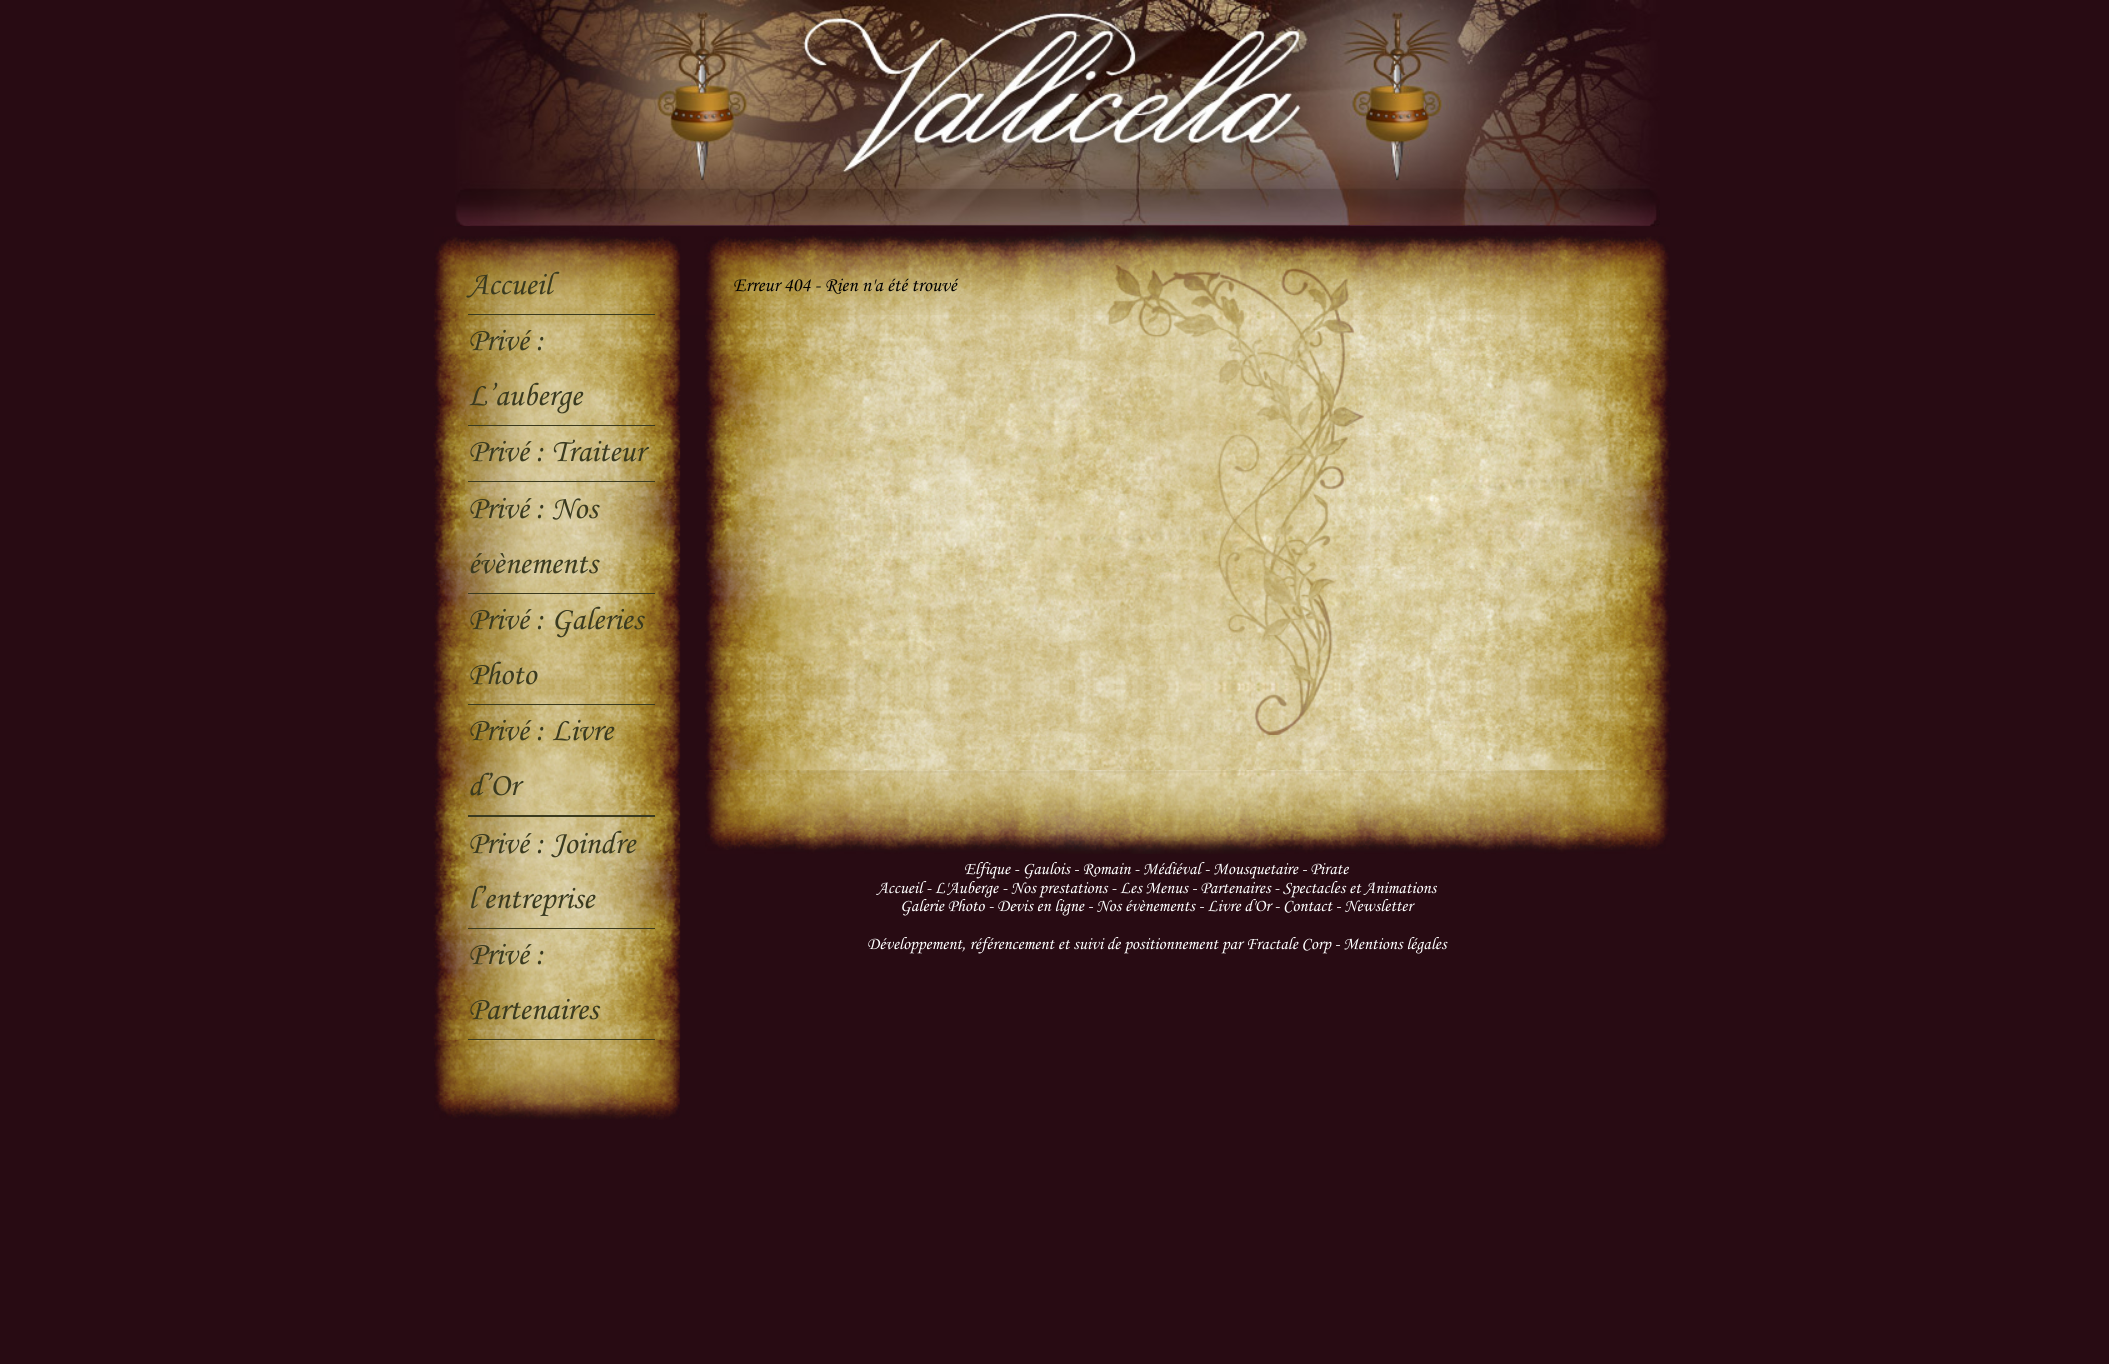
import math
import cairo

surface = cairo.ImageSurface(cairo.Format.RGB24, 2109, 1364)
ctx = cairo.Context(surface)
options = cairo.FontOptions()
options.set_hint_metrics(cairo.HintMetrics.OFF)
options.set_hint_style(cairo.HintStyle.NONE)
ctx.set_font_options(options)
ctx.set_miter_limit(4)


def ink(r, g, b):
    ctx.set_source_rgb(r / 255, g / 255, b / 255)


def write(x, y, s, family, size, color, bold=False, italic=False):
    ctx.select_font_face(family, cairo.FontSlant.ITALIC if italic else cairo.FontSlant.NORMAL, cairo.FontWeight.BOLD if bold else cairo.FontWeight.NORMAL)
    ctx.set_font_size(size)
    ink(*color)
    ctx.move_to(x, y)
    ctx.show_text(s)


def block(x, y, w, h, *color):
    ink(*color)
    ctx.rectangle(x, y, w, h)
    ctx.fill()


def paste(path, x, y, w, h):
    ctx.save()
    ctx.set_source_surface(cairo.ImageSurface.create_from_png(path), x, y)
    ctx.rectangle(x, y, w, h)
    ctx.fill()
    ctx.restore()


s1 = dict(family="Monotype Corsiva", size=32.5, color=(58, 58, 31), italic=True)
s2 = dict(family="Monotype Corsiva", size=20, color=(0, 0, 0), italic=True)
s3 = dict(family="Monotype Corsiva", size=17.5, color=(255, 255, 255), italic=True)

ink(40, 11, 19)
ctx.paint()
paste("pic1.png", 455, 0, 1205, 227)
paste("pic2.png", 434, 226, 261, 89)
block(468, 314, 187, 1, 58, 58, 31)
write(468, 294, "Accueil", **s1)
paste("pic3.png", 433, 315, 248, 725)
block(468, 425, 187, 1, 58, 58, 31)
write(468, 350, "Privé :", **s1)
write(468, 405, "L’auberge", **s1)
block(468, 481, 187, 1, 58, 58, 31)
write(468, 461, "Privé : Traiteur", **s1)
block(468, 593, 187, 1, 58, 58, 31)
write(468, 518, "Privé : Nos", **s1)
write(468, 573, "évènements", **s1)
block(468, 704, 187, 1, 58, 58, 31)
write(468, 629, "Privé : Galeries", **s1)
write(468, 684, "Photo", **s1)
block(468, 815, 187, 2, 58, 58, 31)
write(468, 740, "Privé : Livre", **s1)
write(468, 795, "d’Or", **s1)
block(468, 928, 187, 1, 58, 58, 31)
write(468, 853, "Privé : Joindre", **s1)
write(468, 908, "l’entreprise", **s1)
block(468, 1039, 187, 1, 58, 58, 31)
write(468, 964, "Privé :", **s1)
write(468, 1019, "Partenaires", **s1)
paste("pic4.png", 434, 1040, 246, 80)
paste("pic5.png", 695, 226, 975, 89)
paste("pic6.png", 705, 315, 966, 455)
write(733, 291, "Erreur 404 - Rien n'a été trouvé", **s2)
paste("pic7.png", 1107, 265, 257, 470)
paste("pic8.png", 705, 770, 965, 84)
write(964, 874, "Elfique - Gaulois - Romain - Médiéval - Mousquetaire - Pirate", **s3)
write(877, 893, "Accueil - L'Auberge - Nos prestations - Les Menus - Partenaires - Spectacles et Animations", **s3)
write(900, 911, "Galerie Photo - Devis en ligne - Nos évènements - Livre d'Or - Contact - Newsletter", **s3)
write(867, 949, "Développement, référencement et suivi de positionnement par Fractale Corp - Mentions légales", **s3)
surface.write_to_png("screenshot.png")
